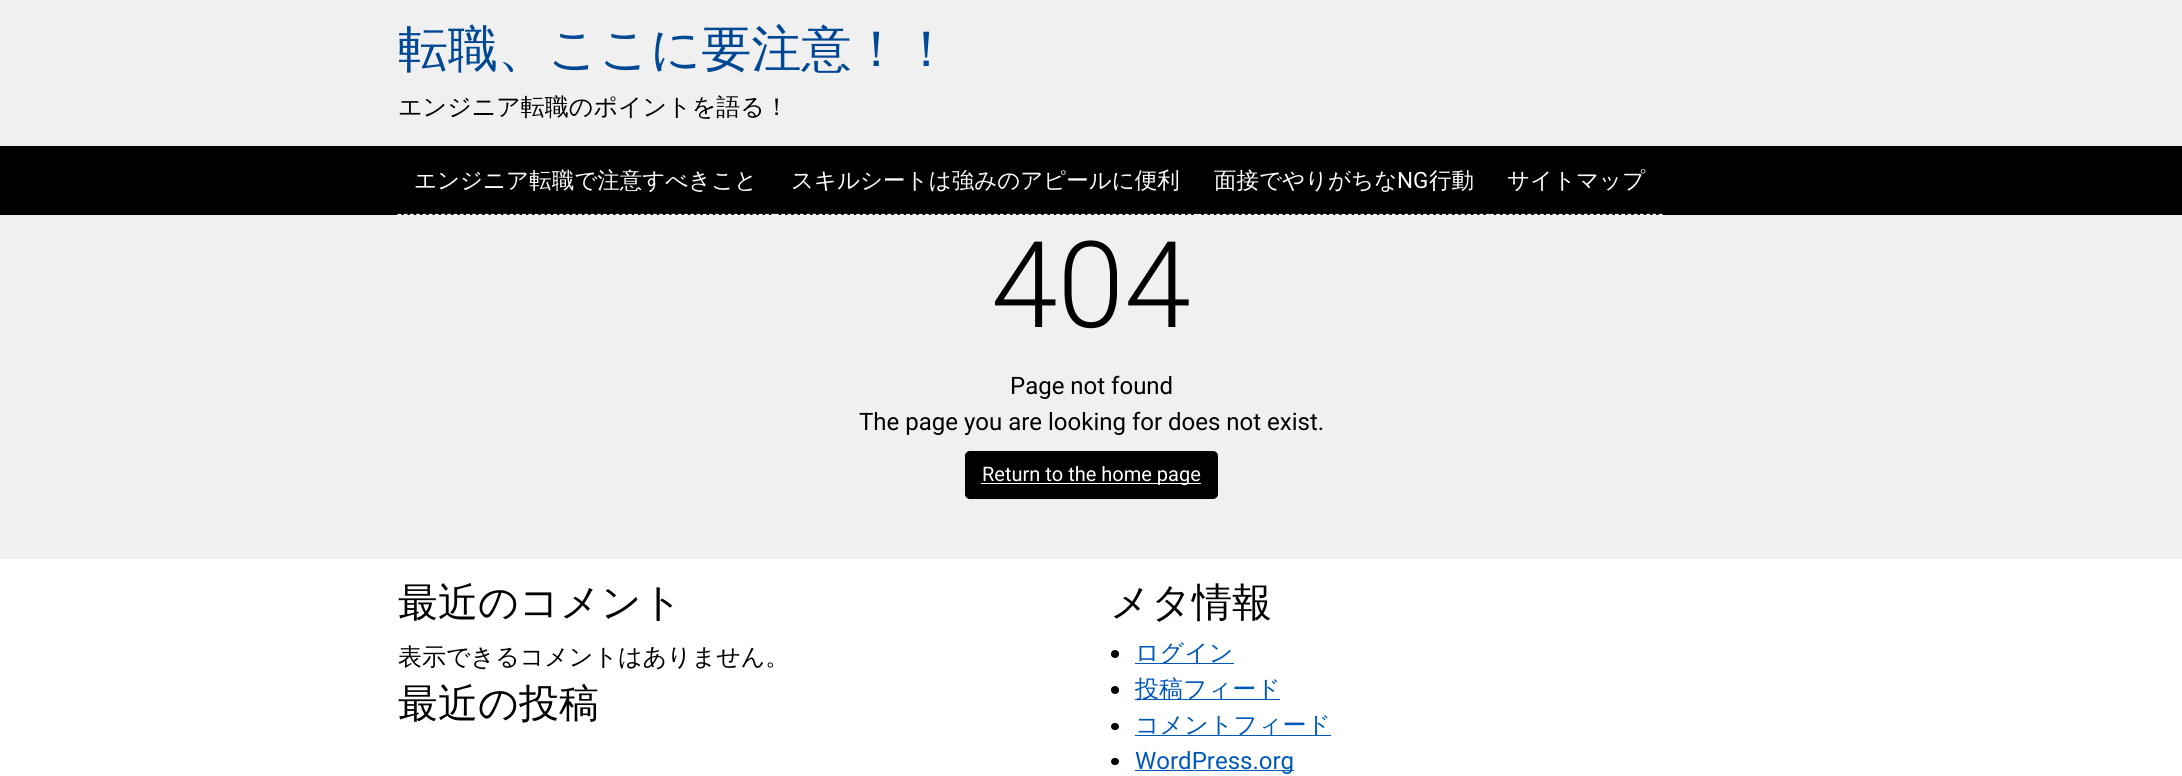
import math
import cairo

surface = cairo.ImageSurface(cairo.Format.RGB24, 2182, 776)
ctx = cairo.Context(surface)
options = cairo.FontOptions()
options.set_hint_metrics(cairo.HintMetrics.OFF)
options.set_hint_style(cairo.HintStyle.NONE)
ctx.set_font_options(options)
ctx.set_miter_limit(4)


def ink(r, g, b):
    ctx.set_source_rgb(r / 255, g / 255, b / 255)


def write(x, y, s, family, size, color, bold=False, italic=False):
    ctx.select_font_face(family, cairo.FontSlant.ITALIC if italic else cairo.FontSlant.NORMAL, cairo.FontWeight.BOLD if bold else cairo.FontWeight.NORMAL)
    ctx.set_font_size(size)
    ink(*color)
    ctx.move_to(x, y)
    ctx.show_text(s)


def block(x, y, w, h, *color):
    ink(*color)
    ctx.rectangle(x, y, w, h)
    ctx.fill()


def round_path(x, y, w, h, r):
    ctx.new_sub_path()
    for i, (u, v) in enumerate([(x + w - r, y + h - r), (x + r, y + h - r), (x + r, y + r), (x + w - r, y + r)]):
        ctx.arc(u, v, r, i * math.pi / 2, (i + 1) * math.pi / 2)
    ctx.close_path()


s1 = dict(family="WenQuanYi Zen Hei Medium", size=50, color=(0, 71, 148))
s2 = dict(family="WenQuanYi Zen Hei Medium", size=24, color=(0, 0, 0))
s3 = dict(family="WenQuanYi Zen Hei Medium", size=22.5, color=(255, 255, 255))
s4 = dict(family="Roboto", size=22.5, color=(255, 255, 255))
s5 = dict(family="Roboto Light", size=120, color=(0, 0, 0))
s6 = dict(family="Roboto", size=24, color=(0, 0, 0))
s7 = dict(family="Roboto", size=20, color=(255, 255, 255))
s8 = dict(family="WenQuanYi Zen Hei Medium", size=40, color=(0, 0, 0))
s9 = dict(family="WenQuanYi Zen Hei Medium", size=24, color=(0, 89, 184))
s10 = dict(family="Roboto", size=24, color=(0, 89, 184))

ink(240, 240, 240)
ctx.paint()
write(398, 66, "転職、ここに要注意！！", **s1)
write(398, 115, "エンジニア転職のポイントを語る！", **s2)
block(0, 146, 2182, 69, 0, 0, 0)
ctx.new_path()
ctx.move_to(397.5, 214.5)
ctx.line_to(775, 214.5)
ink(255, 255, 255)
ctx.set_line_width(1.2)
ctx.set_dash([3.75, 2.48])
ctx.stroke()
write(414, 188, "エンジニア転職で注意すべきこと", **s3)
ctx.new_path()
ctx.move_to(775, 214.5)
ctx.line_to(1197.5, 214.5)
ctx.set_dash([3.75, 2.5])
ctx.stroke()
write(791, 188, "スキルシートは強みのアピールに便利", **s3)
ctx.new_path()
ctx.move_to(1197.5, 214.5)
ctx.line_to(1490, 214.5)
ctx.set_dash([3.75, 2.52])
ctx.stroke()
write(1214, 188, "面接でやりがちな", **s3)
write(1397, 188, "NG", **s4)
write(1429, 188, "行動", **s3)
ctx.new_path()
ctx.move_to(1490, 214.5)
ctx.line_to(1662.5, 214.5)
ctx.set_dash([3.75, 2.5])
ctx.stroke()
write(1507, 188, "サイトマップ", **s3)
write(991, 327, "404", **s5)
write(1010, 394, "Page not found", **s6)
write(859, 430, "The page you are looking for does not exist.", **s6)
round_path(965.5, 451.5, 252, 47, 4.5)
ctx.fill_preserve()
ctx.set_line_width(1)
ctx.set_dash([])
ctx.stroke()
block(981, 483, 220, 1, 255, 255, 255)
write(982, 481, "Return to the home page", **s7)
block(0, 559, 2182, 217, 255, 255, 255)
write(398, 616, "最近のコメント", **s8)
write(398, 665, "表示できるコメントはありません。", **s2)
write(398, 717, "最近の投稿", **s8)
write(1110, 616, "メタ情報", **s8)
ctx.new_path()
ctx.arc(1115, 654, 4, 0, 2 * math.pi)
ctx.fill()
block(1135, 663, 99, 1, 0, 89, 184)
write(1135, 661, "ログイン", **s9)
ink(0, 0, 0)
ctx.new_path()
ctx.arc(1115, 690, 4, 0, 2 * math.pi)
ctx.fill()
block(1135, 699, 145, 1, 0, 89, 184)
write(1135, 697, "投稿フィード", **s9)
ink(0, 0, 0)
round_path(1111, 723, 8, 7, 3.5)
ctx.fill()
block(1135, 735, 196, 1, 0, 89, 184)
write(1135, 733, "コメントフィード", **s9)
ink(0, 0, 0)
round_path(1111, 758, 8, 7, 3.5)
ctx.fill()
block(1135, 770, 159, 1, 0, 89, 184)
write(1135, 769, "WordPress.org", **s10)
surface.write_to_png("screenshot.png")
